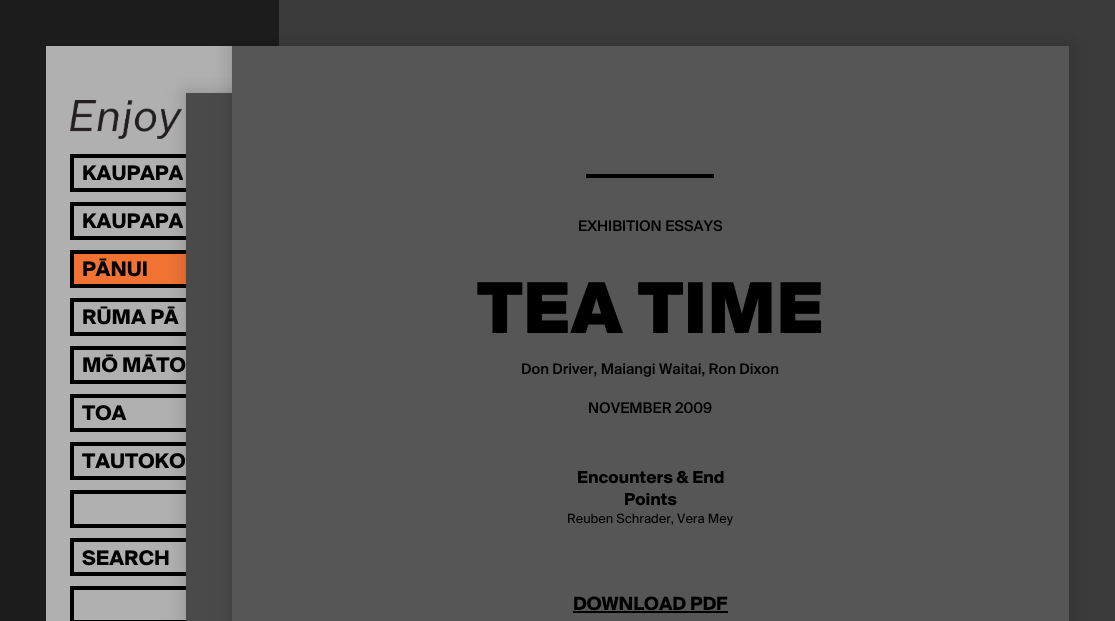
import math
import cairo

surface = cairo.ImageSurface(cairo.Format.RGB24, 1115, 621)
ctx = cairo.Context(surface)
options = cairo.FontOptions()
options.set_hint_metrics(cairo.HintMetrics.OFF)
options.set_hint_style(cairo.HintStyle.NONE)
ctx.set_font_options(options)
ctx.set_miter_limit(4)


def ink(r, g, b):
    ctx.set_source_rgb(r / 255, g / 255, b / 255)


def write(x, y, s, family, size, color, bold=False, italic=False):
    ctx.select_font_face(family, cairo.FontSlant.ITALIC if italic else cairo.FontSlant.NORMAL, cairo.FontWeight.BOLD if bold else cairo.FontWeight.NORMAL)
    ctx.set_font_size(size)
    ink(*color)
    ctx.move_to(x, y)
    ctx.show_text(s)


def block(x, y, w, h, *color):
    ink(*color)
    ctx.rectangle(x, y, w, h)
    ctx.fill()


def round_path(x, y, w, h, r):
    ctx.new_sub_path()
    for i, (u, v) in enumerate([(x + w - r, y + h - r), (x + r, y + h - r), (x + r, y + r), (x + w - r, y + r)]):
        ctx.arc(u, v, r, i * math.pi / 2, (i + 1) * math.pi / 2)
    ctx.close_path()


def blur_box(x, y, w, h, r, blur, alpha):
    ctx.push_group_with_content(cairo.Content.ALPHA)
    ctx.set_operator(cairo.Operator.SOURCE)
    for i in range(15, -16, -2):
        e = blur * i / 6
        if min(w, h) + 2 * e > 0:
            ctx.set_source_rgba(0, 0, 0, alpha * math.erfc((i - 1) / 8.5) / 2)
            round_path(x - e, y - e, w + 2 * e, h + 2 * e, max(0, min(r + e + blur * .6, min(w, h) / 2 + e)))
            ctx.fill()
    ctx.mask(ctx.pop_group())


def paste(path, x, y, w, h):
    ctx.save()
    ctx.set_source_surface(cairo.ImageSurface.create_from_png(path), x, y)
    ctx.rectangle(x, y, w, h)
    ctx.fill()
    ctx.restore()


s1 = dict(family="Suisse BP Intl", size=22, color=(0, 0, 0), bold=True)
s2 = dict(family="Suisse BP Intl Medium", size=16, color=(0, 0, 0))
s3 = dict(family="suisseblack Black", size=70, color=(0, 0, 0))
s4 = dict(family="Suisse BP Intl", size=18, color=(0, 0, 0), bold=True)
s5 = dict(family="Suisse BP Intl", size=14, color=(0, 0, 0))
s6 = dict(family="Suisse BP Intl", size=20, color=(0, 0, 0), bold=True)

ink(28, 28, 28)
ctx.paint()
block(46, 46, 186, 575, 176, 176, 176)
paste("pic1.png", 70, 100, 112, 39)
ctx.rectangle(72, 156, 300, 34)
ink(0, 0, 0)
ctx.set_line_width(4)
ctx.stroke()
write(82, 180, "KAUPAPA", **s1)
ctx.rectangle(72, 204, 300, 34)
ctx.stroke()
write(82, 228, "KAUPAPA", **s1)
ctx.rectangle(72, 252, 300, 34)
ctx.stroke()
block(74, 254, 112, 30, 241, 115, 52)
write(82, 276, "PĀNUI", **s1)
ctx.rectangle(72, 300, 300, 34)
ctx.stroke()
write(82, 324, "RŪMA PĀ", **s1)
ctx.rectangle(72, 348, 300, 34)
ctx.stroke()
write(82, 372, "MŌ MĀTO", **s1)
ctx.rectangle(72, 396, 300, 34)
ctx.stroke()
write(82, 420, "TOA", **s1)
ctx.rectangle(72, 444, 300, 34)
ctx.stroke()
write(82, 468, "TAUTOKO", **s1)
ctx.rectangle(72, 492, 300, 34)
ctx.stroke()
ctx.rectangle(72, 540, 300, 34)
ctx.stroke()
write(82, 565, "SEARCH", **s1)
ctx.rectangle(72, 588, 300, 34)
ctx.stroke()
block(279, 0, 836, 621, 59, 59, 59)
ink(0, 0, 0)
blur_box(186, 93, 836, 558, 0, 10, 0.2)
block(186, 93, 46, 528, 74, 74, 74)
ink(0, 0, 0)
blur_box(232, 46, 837, 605, 0, 10, 0.2)
block(232, 46, 837, 575, 86, 86, 86)
block(586, 174, 128, 4, 0, 0, 0)
write(578, 231, "EXHIBITION ESSAYS", **s2)
write(477, 333, "TEA TIME", **s3)
write(521, 374, "Don Driver, Maiangi Waitai, Ron Dixon", **s2)
write(588, 413, "NOVEMBER 2009", **s2)
write(577, 483, "Encounters & End", **s4)
write(624, 505, "Points", **s4)
write(567, 523, "Reuben Schrader, Vera Mey", **s5)
write(573, 610, "DOWNLOAD PDF", **s6)
block(573, 611, 155, 2, 0, 0, 0)
surface.write_to_png("screenshot.png")
